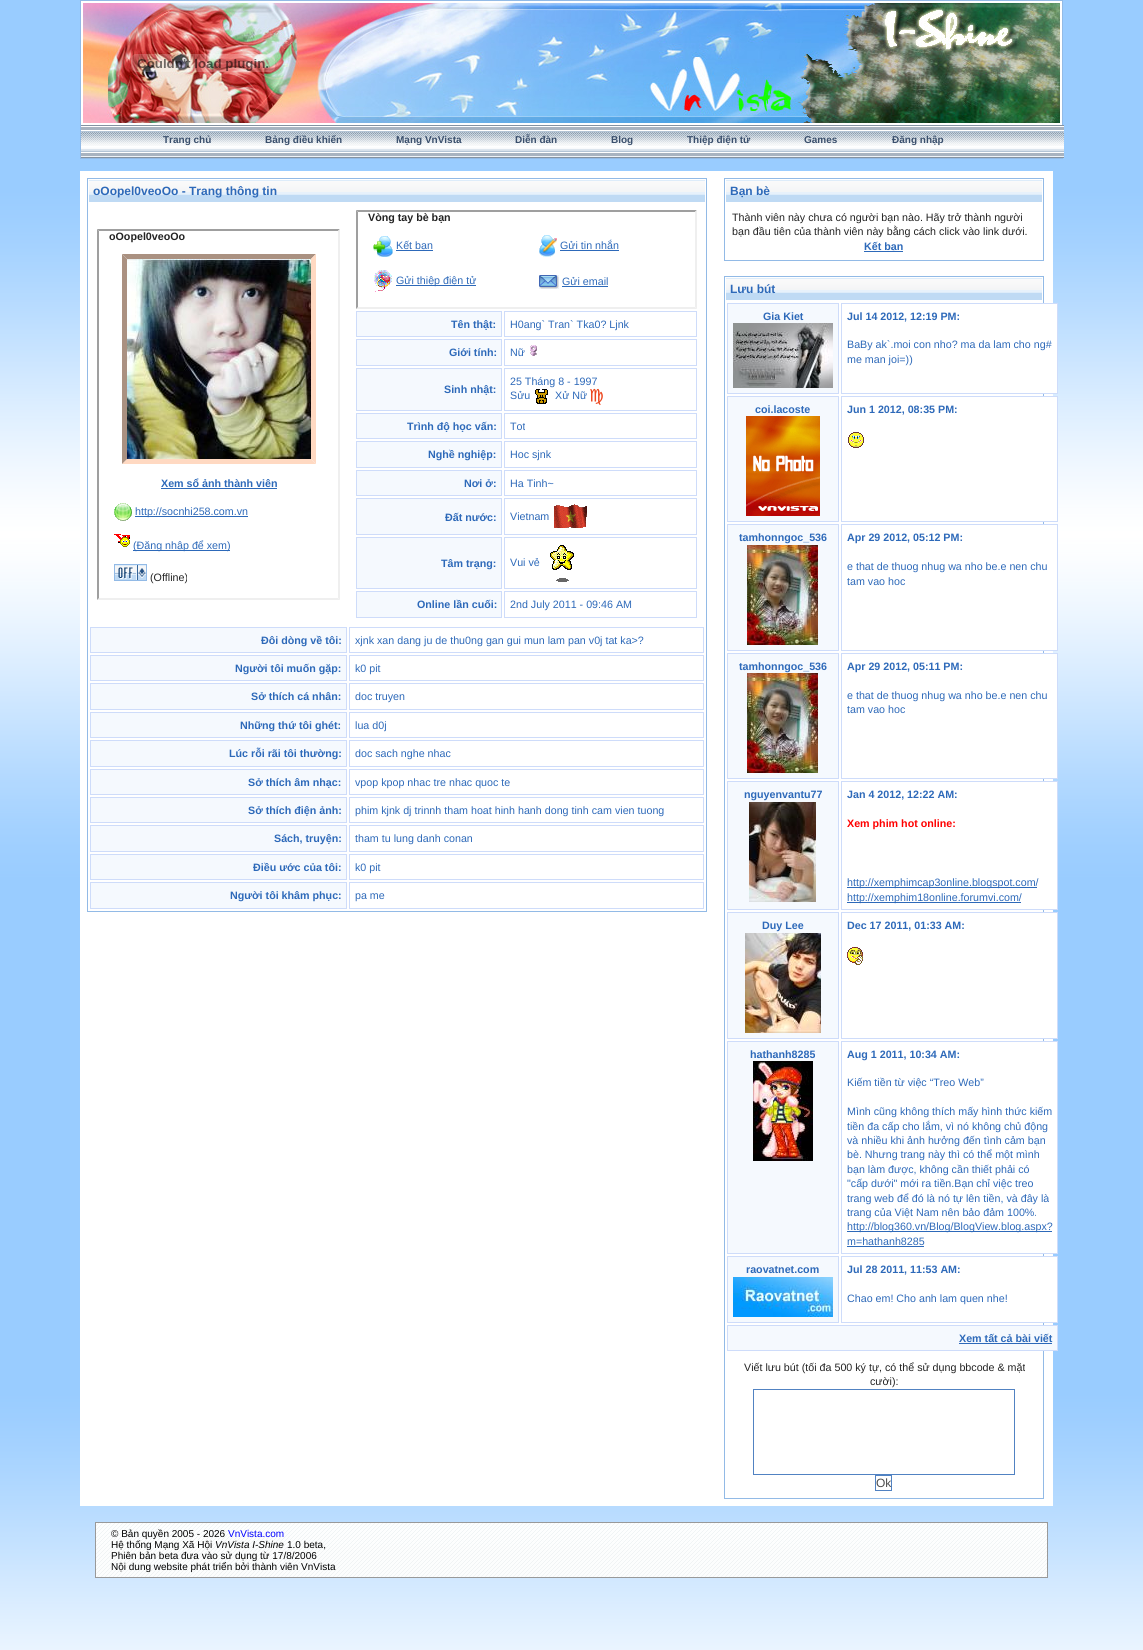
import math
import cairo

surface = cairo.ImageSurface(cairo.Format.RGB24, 1143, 1650)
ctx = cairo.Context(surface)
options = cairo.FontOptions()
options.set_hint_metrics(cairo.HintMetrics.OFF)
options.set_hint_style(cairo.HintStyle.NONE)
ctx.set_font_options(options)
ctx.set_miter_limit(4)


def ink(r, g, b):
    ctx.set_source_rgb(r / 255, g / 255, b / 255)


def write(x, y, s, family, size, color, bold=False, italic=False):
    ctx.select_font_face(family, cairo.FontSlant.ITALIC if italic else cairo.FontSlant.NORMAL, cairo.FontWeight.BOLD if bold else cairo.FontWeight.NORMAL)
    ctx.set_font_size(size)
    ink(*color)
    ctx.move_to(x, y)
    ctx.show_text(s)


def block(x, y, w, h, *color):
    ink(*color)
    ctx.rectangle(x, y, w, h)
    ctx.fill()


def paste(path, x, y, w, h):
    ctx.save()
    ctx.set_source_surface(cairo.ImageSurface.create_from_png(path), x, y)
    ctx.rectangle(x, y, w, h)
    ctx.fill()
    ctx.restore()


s1 = dict(family="Liberation Sans", size=10, color=(58, 79, 108), bold=True)
s2 = dict(family="Liberation Sans", size=12, color=(45, 105, 185), bold=True)
s3 = dict(family="Liberation Sans", size=10.7, color=(34, 34, 34), bold=True)
s4 = dict(family="Liberation Sans", size=10.7, color=(45, 105, 185), bold=True)
s5 = dict(family="Liberation Sans", size=10.7, color=(45, 105, 185))
s6 = dict(family="Liberation Sans", size=10.7, color=(34, 34, 34))
s7 = dict(family="Liberation Sans", size=10.7, color=(255, 0, 0), bold=True)
s8 = dict(family="Liberation Sans", size=12, color=(77, 77, 77))
s9 = dict(family="Liberation Sans", size=10, color=(0, 0, 0))
s10 = dict(family="Liberation Sans", size=10, color=(0, 0, 255))
s11 = dict(family="Liberation Sans", size=10, color=(0, 0, 0), italic=True)

ink(255, 255, 255)
ctx.paint()
paste("pic1.png", 0, 0, 1143, 1650)
block(81, 1, 981, 124, 255, 255, 255)
ctx.rectangle(80.5, 0.5, 982, 158)
ink(146, 186, 230)
ctx.set_line_width(1)
ctx.stroke()
paste("pic2.png", 83, 3, 977, 120)
paste("pic3.png", 131, 54, 144, 18)
paste("pic4.png", 81, 125, 983, 33)
write(163, 143, "Trang chủ", **s1)
write(265, 143, "Bảng điều khiển", **s1)
write(396, 143, "Mạng VnVista", **s1)
write(515, 143, "Diễn đàn", **s1)
write(611, 143, "Blog", **s1)
write(687, 143, "Thiệp điện tử", **s1)
write(804, 143, "Games", **s1)
write(892, 143, "Đăng nhập", **s1)
block(80, 171, 973, 1335, 255, 255, 255)
ctx.rectangle(87.5, 178.5, 619, 733)
ink(146, 186, 230)
ctx.stroke()
paste("pic5.png", 89, 180, 616, 22)
write(93, 195, "oOopel0veoOo - Trang thông tin", **s2)
ink(159, 159, 159)
ctx.new_path()
ctx.move_to(97, 229)
ctx.line_to(340, 229)
ctx.line_to(338, 231)
ctx.line_to(99, 231)
ctx.close_path()
ctx.fill()
ink(239, 239, 239)
ctx.new_path()
ctx.move_to(340, 229)
ctx.line_to(340, 600)
ctx.line_to(338, 598)
ctx.line_to(338, 231)
ctx.close_path()
ctx.fill()
ctx.new_path()
ctx.move_to(340, 600)
ctx.line_to(97, 600)
ctx.line_to(99, 598)
ctx.line_to(338, 598)
ctx.close_path()
ctx.fill()
ink(159, 159, 159)
ctx.new_path()
ctx.move_to(97, 600)
ctx.line_to(97, 229)
ctx.line_to(99, 231)
ctx.line_to(99, 598)
ctx.close_path()
ctx.fill()
write(109, 240, "oOopel0veoOo", **s3)
ink(170, 145, 129)
ctx.new_path()
ctx.move_to(122, 254)
ctx.line_to(316, 254)
ctx.line_to(311, 259)
ctx.line_to(127, 259)
ctx.close_path()
ctx.fill()
ink(255, 217, 194)
ctx.new_path()
ctx.move_to(316, 254)
ctx.line_to(316, 464)
ctx.line_to(311, 459)
ctx.line_to(311, 259)
ctx.close_path()
ctx.fill()
ctx.new_path()
ctx.move_to(316, 464)
ctx.line_to(122, 464)
ctx.line_to(127, 459)
ctx.line_to(311, 459)
ctx.close_path()
ctx.fill()
ink(170, 145, 129)
ctx.new_path()
ctx.move_to(122, 464)
ctx.line_to(122, 254)
ctx.line_to(127, 259)
ctx.line_to(127, 459)
ctx.close_path()
ctx.fill()
paste("pic6.png", 127, 259, 184, 200)
write(161, 487, "Xem sổ ảnh thành viên", **s4)
block(161, 488, 116, 1, 45, 105, 185)
paste("pic7.png", 114, 503, 18, 18)
block(135, 516, 113, 1, 45, 105, 185)
write(135, 515, "http://socnhi258.com.vn", **s5)
paste("pic8.png", 114, 534, 16, 13)
block(133, 550, 97, 1, 45, 105, 185)
write(133, 549, "(Đăng nhập để xem)", **s5)
paste("pic9.png", 114, 564, 33, 17)
write(150, 581, "(Offline)", **s6)
ink(159, 159, 159)
ctx.new_path()
ctx.move_to(356, 210)
ctx.line_to(697, 210)
ctx.line_to(695, 212)
ctx.line_to(358, 212)
ctx.close_path()
ctx.fill()
ink(239, 239, 239)
ctx.new_path()
ctx.move_to(697, 210)
ctx.line_to(697, 309)
ctx.line_to(695, 307)
ctx.line_to(695, 212)
ctx.close_path()
ctx.fill()
ctx.new_path()
ctx.move_to(697, 309)
ctx.line_to(356, 309)
ctx.line_to(358, 307)
ctx.line_to(695, 307)
ctx.close_path()
ctx.fill()
ink(159, 159, 159)
ctx.new_path()
ctx.move_to(356, 309)
ctx.line_to(356, 210)
ctx.line_to(358, 212)
ctx.line_to(358, 307)
ctx.close_path()
ctx.fill()
write(368, 221, "Vòng tay bè bạn", **s3)
paste("pic10.png", 373, 236, 20, 21)
block(396, 250, 37, 1, 45, 105, 185)
write(396, 249, "Kết bạn", **s5)
paste("pic11.png", 539, 235, 18, 22)
write(560, 249, "Gửi tin nhắn", **s5)
block(560, 250, 59, 1, 45, 105, 185)
paste("pic12.png", 374, 270, 18, 22)
block(396, 285, 80, 1, 45, 105, 185)
write(396, 284, "Gửi thiệp điện tử", **s5)
paste("pic13.png", 539, 275, 20, 14)
write(562, 285, "Gửi email", **s5)
block(562, 286, 46, 1, 45, 105, 185)
ink(245, 249, 254)
ctx.rectangle(356.5, 311.5, 145, 25)
ctx.fill_preserve()
ink(206, 220, 250)
ctx.stroke()
write(451, 328, "Tên thật:", **s4)
ctx.rectangle(504.5, 311.5, 192, 25)
ink(206, 220, 250)
ctx.stroke()
write(510, 328, "H0ang` Tran` Tka0? Ljnk", **s5)
ink(245, 249, 254)
ctx.rectangle(356.5, 339.5, 145, 26)
ctx.fill_preserve()
ink(206, 220, 250)
ctx.stroke()
write(449, 356, "Giới tính:", **s4)
ctx.rectangle(504.5, 339.5, 192, 26)
ink(206, 220, 250)
ctx.stroke()
write(510, 356, "Nữ", **s5)
paste("pic14.png", 530, 345, 7, 11)
ink(245, 249, 254)
ctx.rectangle(356.5, 368.5, 145, 42)
ctx.fill_preserve()
ink(206, 220, 250)
ctx.stroke()
write(444, 393, "Sinh nhật:", **s4)
ctx.rectangle(504.5, 368.5, 192, 42)
ink(206, 220, 250)
ctx.stroke()
write(510, 385, "25 Tháng 8 - 1997", **s5)
write(510, 399, "Sửu", **s5)
paste("pic15.png", 535, 389, 13, 15)
write(555, 399, "Xử Nữ", **s5)
paste("pic16.png", 590, 388, 13, 17)
ink(245, 249, 254)
ctx.rectangle(356.5, 413.5, 145, 25)
ctx.fill_preserve()
ink(206, 220, 250)
ctx.stroke()
write(407, 430, "Trình độ học vấn:", **s4)
ctx.rectangle(504.5, 413.5, 192, 25)
ink(206, 220, 250)
ctx.stroke()
write(510, 430, "Tot", **s5)
ink(245, 249, 254)
ctx.rectangle(356.5, 441.5, 145, 26)
ctx.fill_preserve()
ink(206, 220, 250)
ctx.stroke()
write(428, 458, "Nghề nghiệp:", **s4)
ctx.rectangle(504.5, 441.5, 192, 26)
ink(206, 220, 250)
ctx.stroke()
write(510, 458, "Hoc sjnk", **s5)
ink(245, 249, 254)
ctx.rectangle(356.5, 470.5, 145, 25)
ctx.fill_preserve()
ink(206, 220, 250)
ctx.stroke()
write(464, 487, "Nơi ở:", **s4)
ctx.rectangle(504.5, 470.5, 192, 25)
ink(206, 220, 250)
ctx.stroke()
write(510, 487, "Ha Tinh~", **s5)
ink(245, 249, 254)
ctx.rectangle(356.5, 498.5, 145, 36)
ctx.fill_preserve()
ink(206, 220, 250)
ctx.stroke()
write(445, 521, "Đất nước:", **s4)
ctx.rectangle(504.5, 498.5, 192, 36)
ink(206, 220, 250)
ctx.stroke()
write(510, 520, "Vietnam", **s5)
paste("pic17.png", 554, 504, 33, 24)
ink(245, 249, 254)
ctx.rectangle(356.5, 537.5, 145, 51)
ctx.fill_preserve()
ink(206, 220, 250)
ctx.stroke()
write(441, 567, "Tâm trạng:", **s4)
ctx.rectangle(504.5, 537.5, 192, 51)
ink(206, 220, 250)
ctx.stroke()
write(510, 566, "Vui vẻ", **s5)
paste("pic18.png", 550, 545, 24, 37)
ink(245, 249, 254)
ctx.rectangle(356.5, 591.5, 145, 26)
ctx.fill_preserve()
ink(206, 220, 250)
ctx.stroke()
write(417, 608, "Online lần cuối:", **s4)
ctx.rectangle(504.5, 591.5, 192, 26)
ink(206, 220, 250)
ctx.stroke()
write(510, 608, "2nd July 2011 - 09:46 AM", **s5)
ink(245, 249, 254)
ctx.rectangle(90.5, 627.5, 256, 25)
ctx.fill_preserve()
ink(206, 220, 250)
ctx.stroke()
write(261, 644, "Đôi dòng về tôi:", **s4)
ctx.rectangle(349.5, 627.5, 354, 25)
ink(206, 220, 250)
ctx.stroke()
write(355, 644, "xjnk xan dang ju de thu0ng gan gui mun lam pan v0j tat ka>?", **s5)
ink(245, 249, 254)
ctx.rectangle(90.5, 655.5, 256, 25)
ctx.fill_preserve()
ink(206, 220, 250)
ctx.stroke()
write(235, 672, "Người tôi muốn gặp:", **s4)
ctx.rectangle(349.5, 655.5, 354, 25)
ink(206, 220, 250)
ctx.stroke()
write(355, 672, "k0 pit", **s5)
ink(245, 249, 254)
ctx.rectangle(90.5, 683.5, 256, 26)
ctx.fill_preserve()
ink(206, 220, 250)
ctx.stroke()
write(251, 700, "Sở thích cá nhân:", **s4)
ctx.rectangle(349.5, 683.5, 354, 26)
ink(206, 220, 250)
ctx.stroke()
write(355, 700, "doc truyen", **s5)
ink(245, 249, 254)
ctx.rectangle(90.5, 712.5, 256, 25)
ctx.fill_preserve()
ink(206, 220, 250)
ctx.stroke()
write(240, 729, "Những thứ tôi ghét:", **s4)
ctx.rectangle(349.5, 712.5, 354, 25)
ink(206, 220, 250)
ctx.stroke()
write(355, 729, "lua d0j", **s5)
ink(245, 249, 254)
ctx.rectangle(90.5, 740.5, 256, 26)
ctx.fill_preserve()
ink(206, 220, 250)
ctx.stroke()
write(229, 757, "Lúc rỗi rãi tôi thường:", **s4)
ctx.rectangle(349.5, 740.5, 354, 26)
ink(206, 220, 250)
ctx.stroke()
write(355, 757, "doc sach nghe nhac", **s5)
ink(245, 249, 254)
ctx.rectangle(90.5, 769.5, 256, 25)
ctx.fill_preserve()
ink(206, 220, 250)
ctx.stroke()
write(248, 786, "Sở thích âm nhạc:", **s4)
ctx.rectangle(349.5, 769.5, 354, 25)
ink(206, 220, 250)
ctx.stroke()
write(355, 786, "vpop kpop nhac tre nhac quoc te", **s5)
ink(245, 249, 254)
ctx.rectangle(90.5, 797.5, 256, 25)
ctx.fill_preserve()
ink(206, 220, 250)
ctx.stroke()
write(248, 814, "Sở thích điện ảnh:", **s4)
ctx.rectangle(349.5, 797.5, 354, 25)
ink(206, 220, 250)
ctx.stroke()
write(355, 814, "phim kjnk dj trinnh tham hoat hinh hanh dong tinh cam vien tuong", **s5)
ink(245, 249, 254)
ctx.rectangle(90.5, 825.5, 256, 26)
ctx.fill_preserve()
ink(206, 220, 250)
ctx.stroke()
write(274, 842, "Sách, truyện:", **s4)
ctx.rectangle(349.5, 825.5, 354, 26)
ink(206, 220, 250)
ctx.stroke()
write(355, 842, "tham tu lung danh conan", **s5)
ink(245, 249, 254)
ctx.rectangle(90.5, 854.5, 256, 25)
ctx.fill_preserve()
ink(206, 220, 250)
ctx.stroke()
write(253, 871, "Điều ước của tôi:", **s4)
ctx.rectangle(349.5, 854.5, 354, 25)
ink(206, 220, 250)
ctx.stroke()
write(355, 871, "k0 pit", **s5)
ink(245, 249, 254)
ctx.rectangle(90.5, 882.5, 256, 26)
ctx.fill_preserve()
ink(206, 220, 250)
ctx.stroke()
write(230, 899, "Người tôi khâm phục:", **s4)
ctx.rectangle(349.5, 882.5, 354, 26)
ink(206, 220, 250)
ctx.stroke()
write(355, 899, "pa me", **s5)
ctx.rectangle(724.5, 178.5, 319, 82)
ink(146, 186, 230)
ctx.stroke()
paste("pic19.png", 726, 180, 316, 22)
write(730, 195, "Bạn bè", **s2)
write(732, 221, "Thành viên này chưa có người bạn nào. Hãy trở thành người", **s6)
write(732, 235, "bạn đầu tiên của thành viên này bằng cách click vào link dưới.", **s6)
block(864, 251, 39, 1, 45, 105, 185)
write(864, 250, "Kết bạn", **s4)
ctx.rectangle(724.5, 276.5, 319, 1222)
ink(146, 186, 230)
ctx.stroke()
paste("pic19.png", 726, 278, 316, 22)
write(730, 293, "Lưu bút", **s2)
ink(245, 249, 254)
ctx.rectangle(727.5, 303.5, 111, 90)
ctx.fill_preserve()
ink(206, 220, 250)
ctx.stroke()
write(763, 320, "Gia Kiet", **s4)
paste("pic20.png", 733, 323, 100, 65)
block(1043, 304, 14, 89, 255, 255, 255)
ctx.rectangle(841.5, 303.5, 216, 90)
ink(206, 220, 250)
ctx.stroke()
write(847, 320, "Jul 14 2012, 12:19 PM:", **s4)
write(847, 348, "BaBy ak`.moi con nho? ma da lam cho ng#", **s5)
write(847, 363, "me man joi=))", **s5)
ink(245, 249, 254)
ctx.rectangle(727.5, 396.5, 111, 125)
ctx.fill_preserve()
ink(206, 220, 250)
ctx.stroke()
write(755, 413, "coi.lacoste", **s4)
paste("pic21.png", 746, 416, 74, 100)
block(1043, 397, 14, 124, 255, 255, 255)
ctx.rectangle(841.5, 396.5, 216, 125)
ink(206, 220, 250)
ctx.stroke()
write(847, 413, "Jun 1 2012, 08:35 PM:", **s4)
paste("pic22.png", 848, 432, 16, 16)
ink(245, 249, 254)
ctx.rectangle(727.5, 524.5, 111, 126)
ctx.fill_preserve()
ink(206, 220, 250)
ctx.stroke()
write(739, 541, "tamhonngoc_536", **s4)
paste("pic23.png", 747, 545, 71, 100)
block(1043, 525, 14, 125, 255, 255, 255)
ctx.rectangle(841.5, 524.5, 216, 126)
ink(206, 220, 250)
ctx.stroke()
write(847, 541, "Apr 29 2012, 05:12 PM:", **s4)
write(847, 570, "e that de thuog nhug wa nho be.e nen chu", **s5)
write(847, 585, "tam vao hoc", **s5)
ink(245, 249, 254)
ctx.rectangle(727.5, 653.5, 111, 125)
ctx.fill_preserve()
ink(206, 220, 250)
ctx.stroke()
write(739, 670, "tamhonngoc_536", **s4)
paste("pic23.png", 747, 673, 71, 100)
block(1043, 654, 14, 124, 255, 255, 255)
ctx.rectangle(841.5, 653.5, 216, 125)
ink(206, 220, 250)
ctx.stroke()
write(847, 670, "Apr 29 2012, 05:11 PM:", **s4)
write(847, 699, "e that de thuog nhug wa nho be.e nen chu", **s5)
write(847, 713, "tam vao hoc", **s5)
ink(245, 249, 254)
ctx.rectangle(727.5, 781.5, 111, 128)
ctx.fill_preserve()
ink(206, 220, 250)
ctx.stroke()
write(744, 798, "nguyenvantu77", **s4)
paste("pic24.png", 749, 802, 67, 100)
block(1043, 782, 14, 127, 255, 255, 255)
ctx.rectangle(841.5, 781.5, 216, 128)
ink(206, 220, 250)
ctx.stroke()
write(847, 798, "Jan 4 2012, 12:22 AM:", **s4)
write(847, 827, "Xem phim hot online:", **s7)
block(847, 887, 190, 1, 45, 105, 185)
write(847, 886, "http://xemphimcap3online.blogspot.com/", **s5)
block(847, 902, 174, 1, 45, 105, 185)
write(847, 901, "http://xemphim18online.forumvi.com/", **s5)
ink(245, 249, 254)
ctx.rectangle(727.5, 912.5, 111, 126)
ctx.fill_preserve()
ink(206, 220, 250)
ctx.stroke()
write(762, 929, "Duy Lee", **s4)
paste("pic25.png", 745, 933, 76, 100)
block(1043, 913, 14, 125, 255, 255, 255)
ctx.rectangle(841.5, 912.5, 216, 126)
ink(206, 220, 250)
ctx.stroke()
write(847, 929, "Dec 17 2011, 01:33 AM:", **s4)
paste("pic26.png", 847, 947, 16, 18)
ink(245, 249, 254)
ctx.rectangle(727.5, 1041.5, 111, 212)
ctx.fill_preserve()
ink(206, 220, 250)
ctx.stroke()
write(750, 1058, "hathanh8285", **s4)
paste("pic27.png", 753, 1061, 60, 100)
block(1043, 1042, 14, 211, 255, 255, 255)
ctx.rectangle(841.5, 1041.5, 216, 212)
ink(206, 220, 250)
ctx.stroke()
write(847, 1058, "Aug 1 2011, 10:34 AM:", **s4)
write(847, 1086, "Kiếm tiền từ việc “Treo Web”", **s5)
write(847, 1115, "Mình cũng không thích mấy hình thức kiếm", **s5)
write(847, 1130, "tiền đa cấp cho lắm, vì nó không chủ động", **s5)
write(847, 1144, "và nhiều khi ảnh hưởng đến tình cảm bạn", **s5)
write(847, 1158, "bè. Nhưng trang này thì có thể một mình", **s5)
write(847, 1173, "bạn làm được, không cần thiết phải có", **s5)
write(847, 1187, "\"cấp dưới\" mới ra tiền.Bạn chỉ việc treo", **s5)
write(847, 1202, "trang web để đó là nó tự lên tiền, và đây là", **s5)
write(847, 1216, "trang của Việt Nam nên bảo đảm 100%.", **s5)
block(847, 1231, 205, 1, 45, 105, 185)
write(847, 1230, "http://blog360.vn/Blog/BlogView.blog.aspx?", **s5)
write(847, 1245, "m=hathanh8285", **s5)
block(847, 1246, 77, 1, 45, 105, 185)
ink(245, 249, 254)
ctx.rectangle(727.5, 1256.5, 111, 66)
ctx.fill_preserve()
ink(206, 220, 250)
ctx.stroke()
write(746, 1273, "raovatnet.com", **s4)
paste("pic28.png", 733, 1277, 100, 40)
block(1043, 1257, 14, 65, 255, 255, 255)
ctx.rectangle(841.5, 1256.5, 216, 66)
ink(206, 220, 250)
ctx.stroke()
write(847, 1273, "Jul 28 2011, 11:53 AM:", **s4)
write(847, 1302, "Chao em! Cho anh lam quen nhe!", **s5)
ink(245, 249, 254)
ctx.rectangle(727.5, 1325.5, 330, 25)
ctx.fill_preserve()
ink(206, 220, 250)
ctx.stroke()
write(959, 1342, "Xem tất cả bài viết", **s4)
block(959, 1343, 93, 1, 45, 105, 185)
write(744, 1371, "Viết lưu bút (tối đa 500 ký tự, có thể sử dụng bbcode & mặt", **s6)
write(870, 1385, "cười):", **s6)
ctx.rectangle(753.5, 1389.5, 261, 85)
ink(81, 130, 194)
ctx.stroke()
ctx.rectangle(875.5, 1475.5, 16, 15)
ctx.stroke()
write(876, 1487, "Ok", **s8)
paste("pic29.png", 96, 1523, 951, 54)
ctx.rectangle(95.5, 1522.5, 952, 55)
ink(153, 153, 153)
ctx.stroke()
write(111, 1537, "© Bản quyền 2005 - 2026", **s9)
write(228, 1537, "VnVista.com", **s10)
write(111, 1548, "Hệ thống Mạng Xã Hội", **s9)
write(215, 1548, "VnVista I-Shine", **s11)
write(287, 1548, "1.0 beta,", **s9)
write(111, 1559, "Phiên bản beta đưa vào sử dụng từ 17/8/2006", **s9)
write(111, 1570, "Nội dung website phát triển bởi thành viên VnVista", **s9)
surface.write_to_png("screenshot.png")
